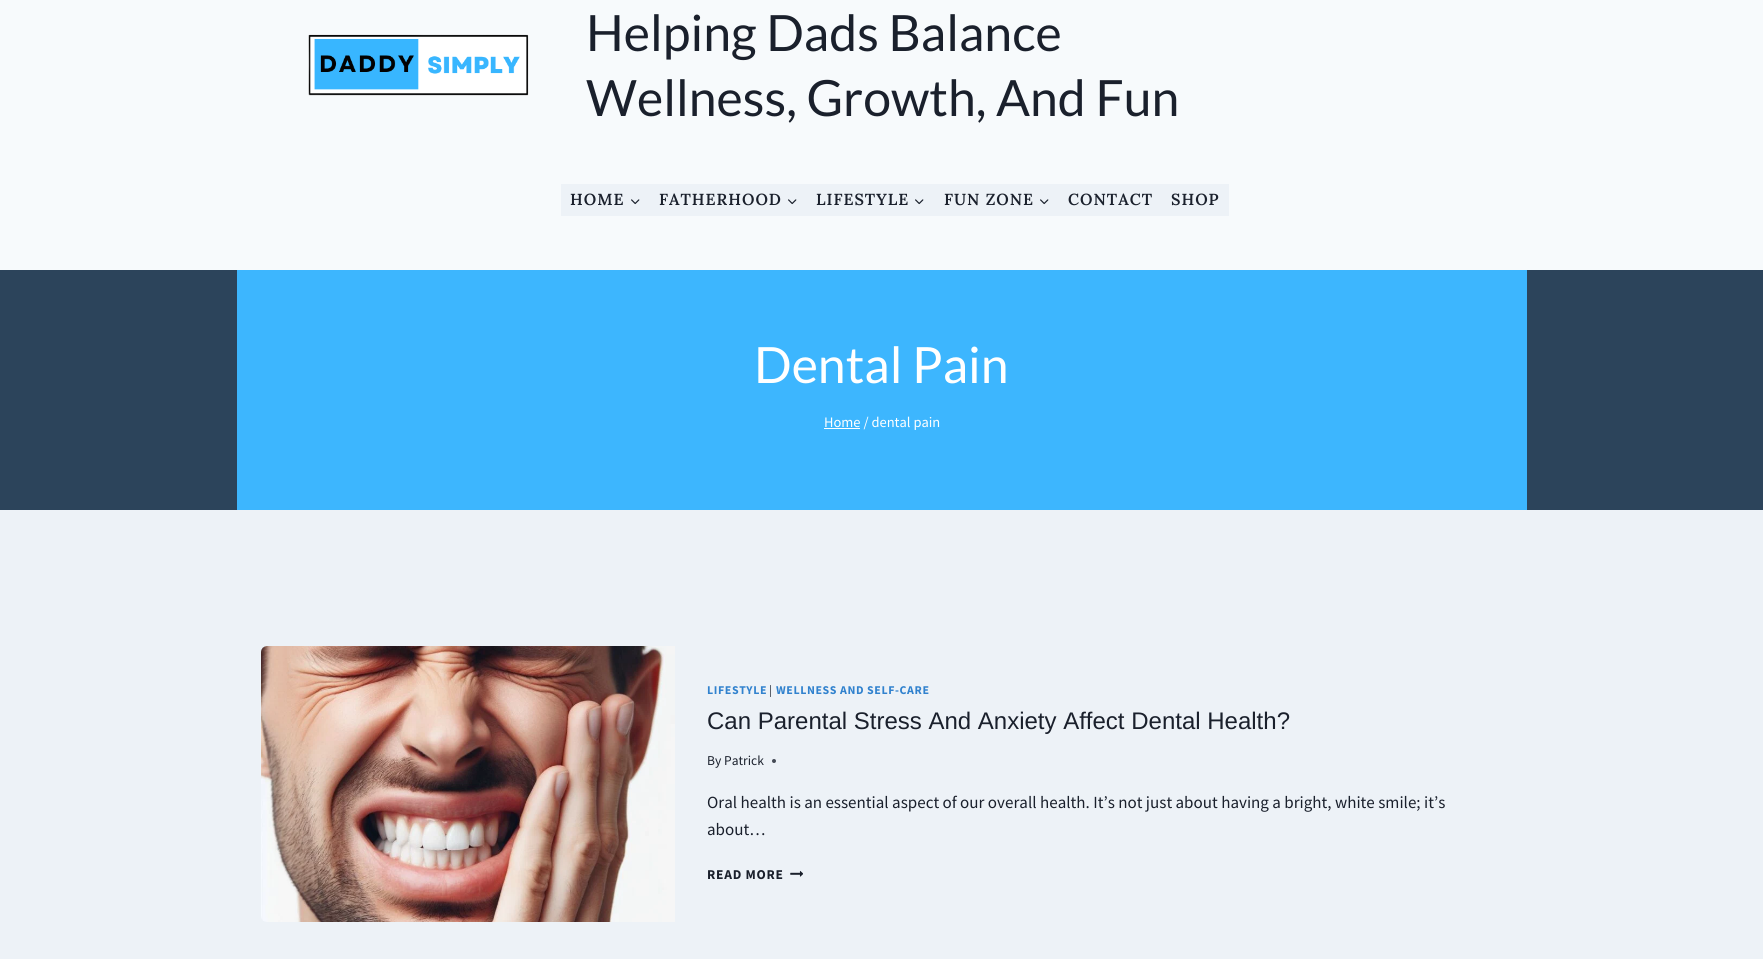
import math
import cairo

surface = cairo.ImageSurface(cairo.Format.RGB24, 1763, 959)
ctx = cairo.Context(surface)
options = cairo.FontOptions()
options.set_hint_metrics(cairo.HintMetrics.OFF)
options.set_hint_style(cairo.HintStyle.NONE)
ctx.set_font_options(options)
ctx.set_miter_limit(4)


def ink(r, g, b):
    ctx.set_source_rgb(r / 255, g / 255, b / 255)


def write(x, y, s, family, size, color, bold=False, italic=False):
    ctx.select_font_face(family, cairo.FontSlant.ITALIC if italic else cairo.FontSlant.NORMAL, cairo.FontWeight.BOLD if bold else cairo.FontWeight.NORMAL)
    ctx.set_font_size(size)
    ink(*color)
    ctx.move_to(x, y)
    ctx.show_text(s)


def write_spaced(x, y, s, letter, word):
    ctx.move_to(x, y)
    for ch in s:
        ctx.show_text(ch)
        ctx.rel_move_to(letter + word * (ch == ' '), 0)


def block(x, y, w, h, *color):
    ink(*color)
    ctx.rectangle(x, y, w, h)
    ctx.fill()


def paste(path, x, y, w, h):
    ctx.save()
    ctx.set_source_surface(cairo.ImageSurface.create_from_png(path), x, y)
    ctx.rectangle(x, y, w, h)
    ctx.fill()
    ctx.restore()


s1 = dict(family="Lato", size=50, color=(26, 32, 44))
s2 = dict(family="Lato", size=50, color=(255, 255, 255))
s3 = dict(family="Source Sans Pro", size=14.5, color=(255, 255, 255))
s4 = dict(family="Liberation Sans", size=24, color=(26, 32, 44))
s5 = dict(family="Source Sans Pro", size=13.5, color=(26, 32, 44))
s6 = dict(family="Source Sans Pro", size=17, color=(26, 32, 44))

ink(237, 242, 247)
ctx.paint()
block(0, 0, 1763, 270, 247, 250, 252)
paste("pic1.png", 308, 34, 221, 62)
write(586, 51, "Helping Dads Balance", **s1)
write(586, 116, "Wellness, Growth, And Fun", **s1)
block(561, 184, 668, 32, 237, 242, 247)
ctx.select_font_face("Lora SemiBold")
ctx.set_font_size(16)
ink(26, 32, 44)
write_spaced(570, 205, "HOME", 1, 0)
paste("pic2.png", 631, 199, 9, 6)
write_spaced(659, 205, "FATHERHOOD", 1, 0)
paste("pic2.png", 788, 199, 9, 6)
write_spaced(816, 205, "LIFESTYLE", 1, 0)
paste("pic2.png", 915, 199, 9, 6)
write_spaced(944, 205, "FUN ZONE", 1, 0)
paste("pic2.png", 1040, 199, 9, 6)
write_spaced(1068, 205, "CONTACT", 1, 0)
write_spaced(1171, 205, "SHOP", 1, 0)
block(0, 270, 1763, 240, 44, 68, 91)
block(237, 270, 1290, 240, 61, 182, 254)
write(754, 383, "Dental Pain", **s2)
block(824, 428, 36, 1, 255, 255, 255)
write(824, 427, "Home / dental pain", **s3)
paste("pic3.png", 261, 646, 414, 276)
ctx.select_font_face("Source Sans Pro", cairo.FontSlant.NORMAL, cairo.FontWeight.BOLD)
ctx.set_font_size(11.9)
ink(49, 130, 206)
write_spaced(707, 694, "LIFESTYLE", 0.6, 0)
ctx.select_font_face("Source Sans Pro")
ink(26, 32, 44)
write_spaced(769, 694, "|", 0.6, 0)
ctx.select_font_face("Source Sans Pro", cairo.FontSlant.NORMAL, cairo.FontWeight.BOLD)
ink(49, 130, 206)
write_spaced(776, 694, "WELLNESS AND SELF-CARE", 0.6, 0)
write(707, 729, "Can Parental Stress And Anxiety Affect Dental Health?", **s4)
write(707, 765, "By", **s5)
write(724, 765, "Patrick", **s5)
ink(68, 74, 85)
ctx.new_path()
ctx.arc(774, 761, 2, 0, 2 * math.pi)
ctx.fill()
write(707, 808, "Oral health is an essential aspect of our overall health. It’s not just about having a bright, white smile; it’s", **s6)
write(707, 835, "about…", **s6)
ctx.select_font_face("Source Sans Pro", cairo.FontSlant.NORMAL, cairo.FontWeight.BOLD)
ctx.set_font_size(13.5)
write_spaced(707, 879, "READ MORE", 0.75, 0)
paste("pic4.png", 790, 870, 13, 7)
surface.write_to_png("screenshot.png")
